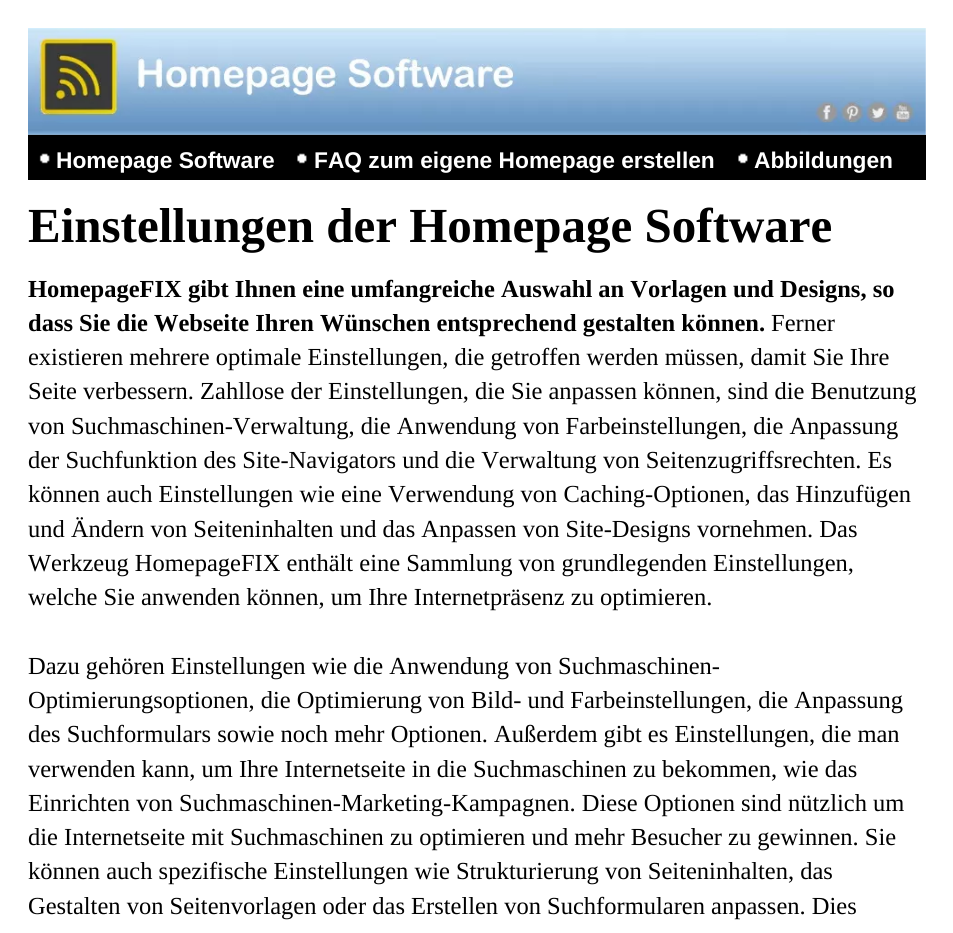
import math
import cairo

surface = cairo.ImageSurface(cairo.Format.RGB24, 953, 933)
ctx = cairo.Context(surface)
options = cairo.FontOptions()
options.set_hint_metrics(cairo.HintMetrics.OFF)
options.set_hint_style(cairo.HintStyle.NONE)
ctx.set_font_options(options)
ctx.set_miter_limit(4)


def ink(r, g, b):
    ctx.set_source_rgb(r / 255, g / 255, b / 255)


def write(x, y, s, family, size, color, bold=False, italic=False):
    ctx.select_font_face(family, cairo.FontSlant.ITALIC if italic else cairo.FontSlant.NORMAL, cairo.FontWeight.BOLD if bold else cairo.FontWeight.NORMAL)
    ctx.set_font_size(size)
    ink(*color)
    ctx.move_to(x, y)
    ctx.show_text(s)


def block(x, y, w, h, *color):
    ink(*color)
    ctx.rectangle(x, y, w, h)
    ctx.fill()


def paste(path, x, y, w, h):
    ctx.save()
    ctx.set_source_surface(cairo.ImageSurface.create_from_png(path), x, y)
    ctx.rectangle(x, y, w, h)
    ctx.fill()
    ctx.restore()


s1 = dict(family="Liberation Sans", size=22.75, color=(255, 255, 255), bold=True)
s2 = dict(family="Liberation Serif", size=49, color=(0, 0, 0), bold=True)
s3 = dict(family="Liberation Serif", size=24.5, color=(0, 0, 0), bold=True)
s4 = dict(family="Liberation Serif", size=24.5, color=(0, 0, 0))

ink(255, 255, 255)
ctx.paint()
paste("pic1.png", 28, 28, 898, 107)
block(28, 135, 898, 45, 0, 0, 0)
paste("pic2.png", 39, 153, 11, 11)
write(56, 168, "Homepage Software", **s1)
paste("pic3.png", 297, 153, 10, 11)
write(314, 168, "FAQ zum eigene Homepage erstellen", **s1)
paste("pic3.png", 738, 153, 10, 11)
write(754, 168, "Abbildungen", **s1)
write(28, 242, "Einstellungen der Homepage Software", **s2)
write(28, 297, "HomepageFIX gibt Ihnen eine umfangreiche Auswahl an Vorlagen und Designs, so", **s3)
write(28, 331, "dass Sie die Webseite Ihren Wünschen entsprechend gestalten können.", **s3)
write(771, 331, "Ferner", **s4)
write(28, 365, "existieren mehrere optimale Einstellungen, die getroffen werden müssen, damit Sie Ihre", **s4)
write(28, 399, "Seite verbessern. Zahllose der Einstellungen, die Sie anpassen können, sind die Benutzung", **s4)
write(28, 434, "von Suchmaschinen-Verwaltung, die Anwendung von Farbeinstellungen, die Anpassung", **s4)
write(28, 468, "der Suchfunktion des Site-Navigators und die Verwaltung von Seitenzugriffsrechten. Es", **s4)
write(28, 502, "können auch Einstellungen wie eine Verwendung von Caching-Optionen, das Hinzufügen", **s4)
write(28, 537, "und Ändern von Seiteninhalten und das Anpassen von Site-Designs vornehmen. Das", **s4)
write(28, 571, "Werkzeug HomepageFIX enthält eine Sammlung von grundlegenden Einstellungen,", **s4)
write(28, 605, "welche Sie anwenden können, um Ihre Internetpräsenz zu optimieren.", **s4)
write(28, 674, "Dazu gehören Einstellungen wie die Anwendung von Suchmaschinen-", **s4)
write(28, 708, "Optimierungsoptionen, die Optimierung von Bild- und Farbeinstellungen, die Anpassung", **s4)
write(28, 742, "des Suchformulars sowie noch mehr Optionen. Außerdem gibt es Einstellungen, die man", **s4)
write(28, 777, "verwenden kann, um Ihre Internetseite in die Suchmaschinen zu bekommen, wie das", **s4)
write(28, 811, "Einrichten von Suchmaschinen-Marketing-Kampagnen. Diese Optionen sind nützlich um", **s4)
write(28, 845, "die Internetseite mit Suchmaschinen zu optimieren und mehr Besucher zu gewinnen. Sie", **s4)
write(28, 879, "können auch spezifische Einstellungen wie Strukturierung von Seiteninhalten, das", **s4)
write(28, 914, "Gestalten von Seitenvorlagen oder das Erstellen von Suchformularen anpassen. Dies", **s4)
surface.write_to_png("screenshot.png")
